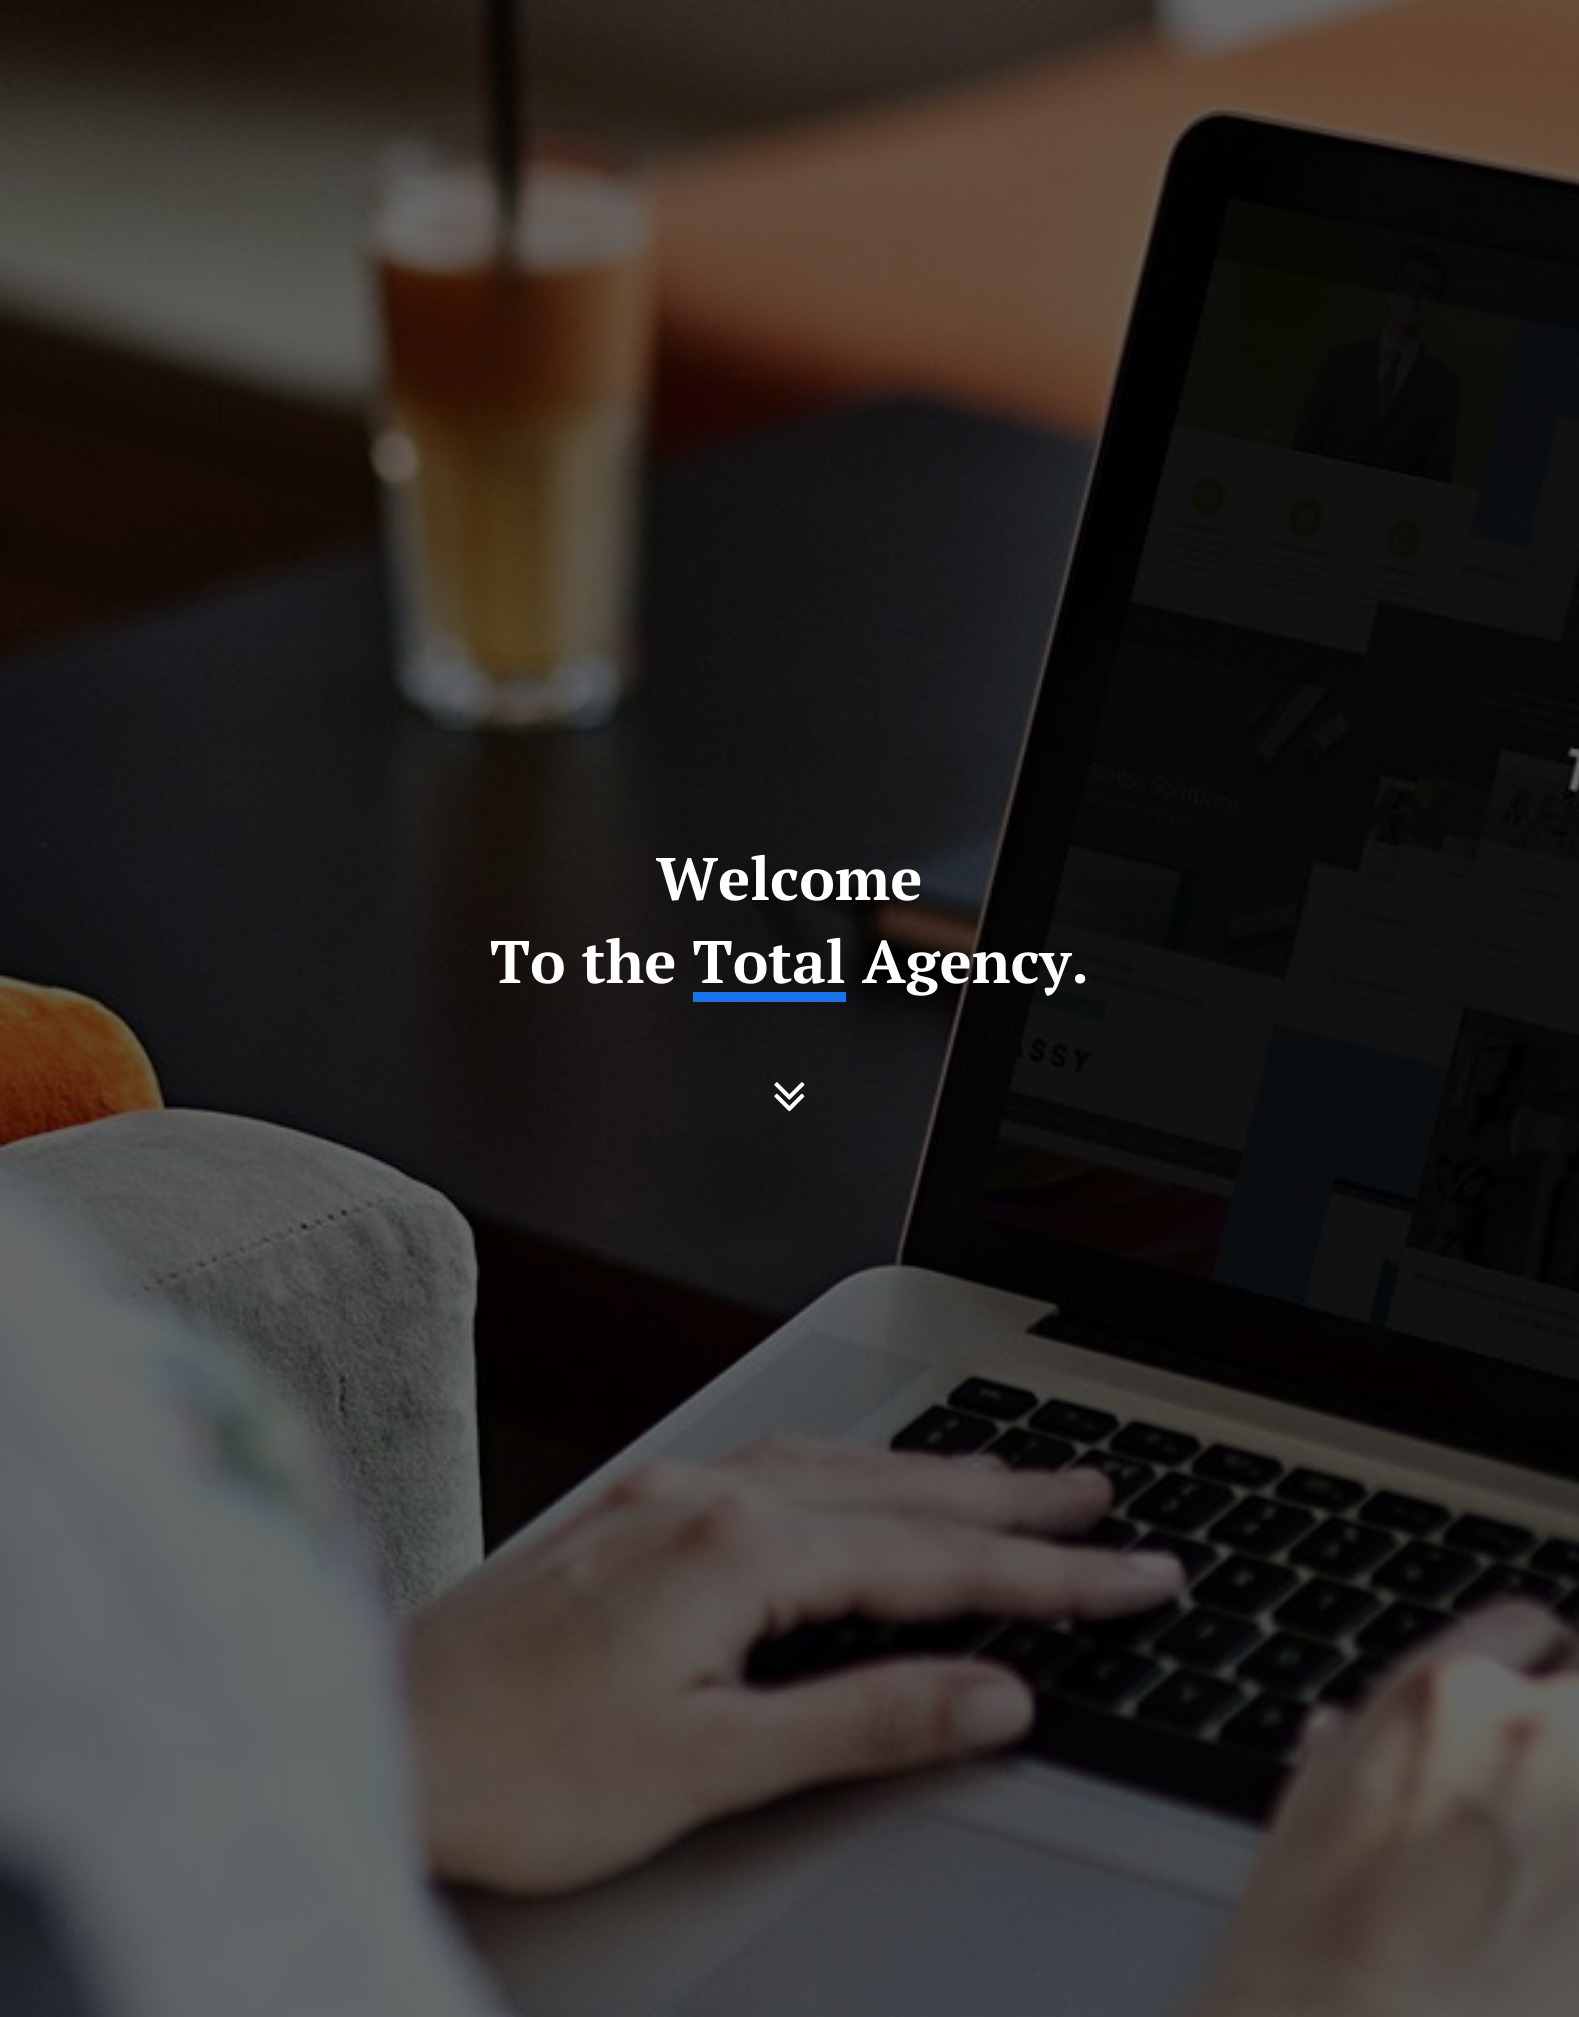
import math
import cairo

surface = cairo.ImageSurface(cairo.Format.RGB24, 1579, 2017)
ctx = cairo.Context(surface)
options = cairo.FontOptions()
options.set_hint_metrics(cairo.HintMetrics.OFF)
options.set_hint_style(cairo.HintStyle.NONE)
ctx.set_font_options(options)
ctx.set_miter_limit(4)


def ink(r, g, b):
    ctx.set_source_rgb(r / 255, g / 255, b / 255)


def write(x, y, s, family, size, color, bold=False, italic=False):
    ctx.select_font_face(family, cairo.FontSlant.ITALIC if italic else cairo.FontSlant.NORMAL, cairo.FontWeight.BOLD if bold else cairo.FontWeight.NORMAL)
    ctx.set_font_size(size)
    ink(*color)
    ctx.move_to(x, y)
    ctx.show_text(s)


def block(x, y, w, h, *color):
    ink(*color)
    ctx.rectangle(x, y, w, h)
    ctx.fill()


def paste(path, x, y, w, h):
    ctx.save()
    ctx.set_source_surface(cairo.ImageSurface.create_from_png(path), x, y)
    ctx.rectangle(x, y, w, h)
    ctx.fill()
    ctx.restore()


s1 = dict(family="PT Serif", size=60, color=(255, 255, 255), bold=True)

ink(255, 255, 255)
ctx.paint()
paste("pic1.png", 0, 0, 1579, 2017)
write(656, 900, "Welcome", **s1)
write(490, 983, "To the Total", **s1)
write(862, 983, "Agency.", **s1)
block(693, 992, 153, 10, 26, 115, 232)
paste("pic2.png", 774, 1082, 31, 30)
surface.write_to_png("screenshot.png")
